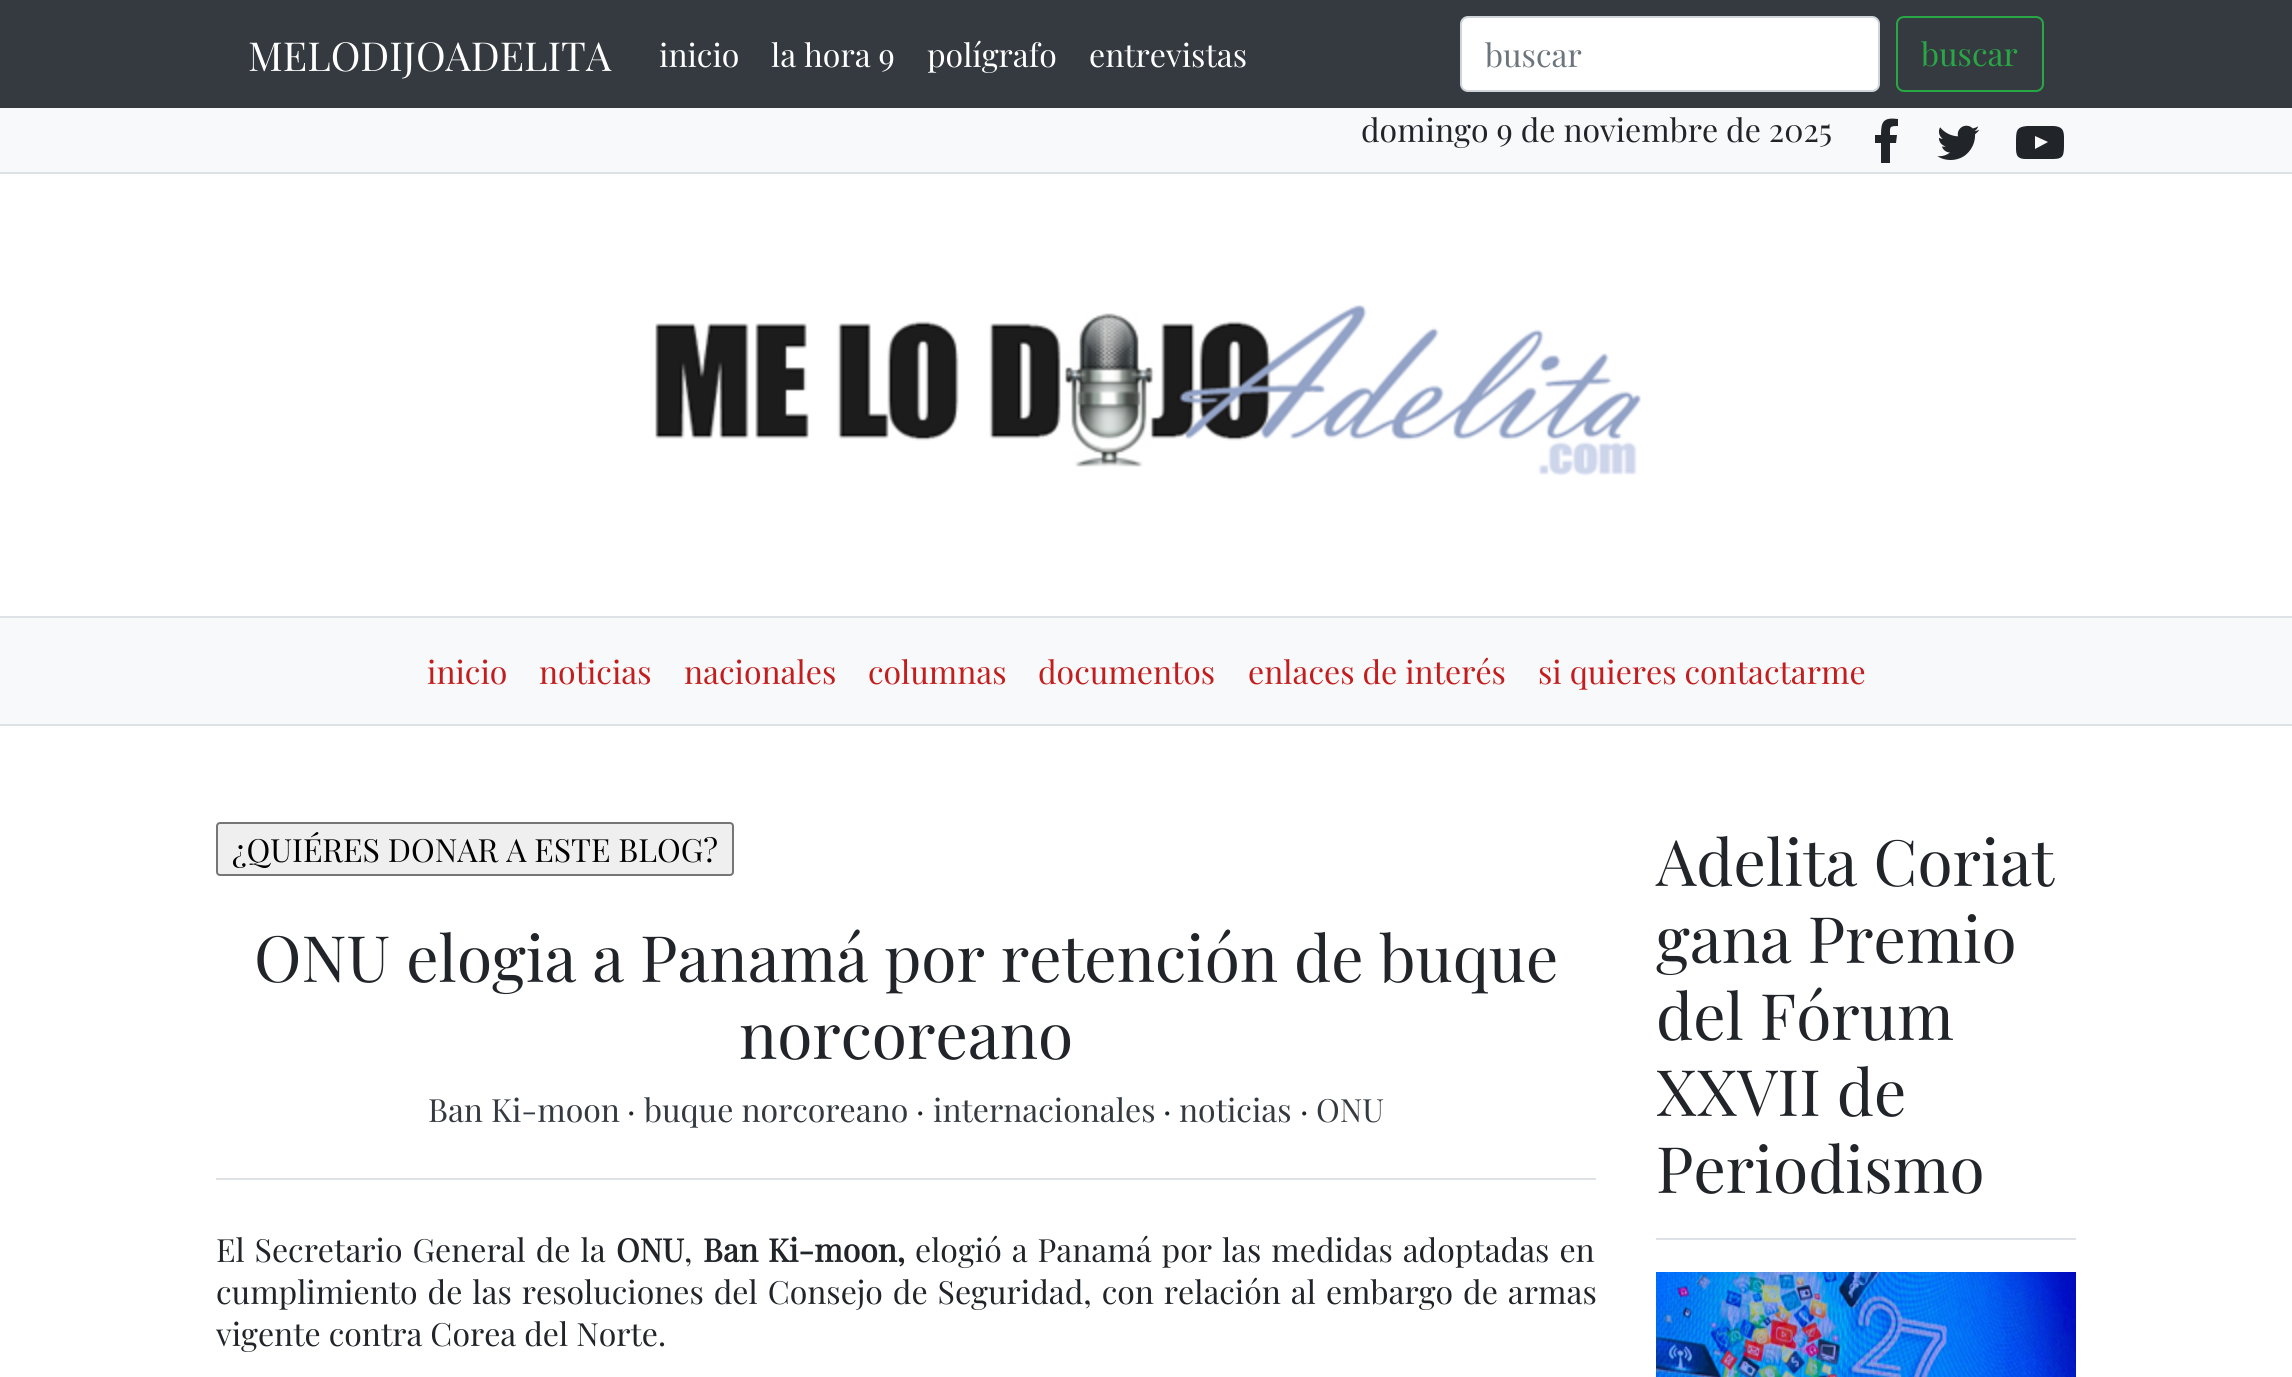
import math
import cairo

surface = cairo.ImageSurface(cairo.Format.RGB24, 2292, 1377)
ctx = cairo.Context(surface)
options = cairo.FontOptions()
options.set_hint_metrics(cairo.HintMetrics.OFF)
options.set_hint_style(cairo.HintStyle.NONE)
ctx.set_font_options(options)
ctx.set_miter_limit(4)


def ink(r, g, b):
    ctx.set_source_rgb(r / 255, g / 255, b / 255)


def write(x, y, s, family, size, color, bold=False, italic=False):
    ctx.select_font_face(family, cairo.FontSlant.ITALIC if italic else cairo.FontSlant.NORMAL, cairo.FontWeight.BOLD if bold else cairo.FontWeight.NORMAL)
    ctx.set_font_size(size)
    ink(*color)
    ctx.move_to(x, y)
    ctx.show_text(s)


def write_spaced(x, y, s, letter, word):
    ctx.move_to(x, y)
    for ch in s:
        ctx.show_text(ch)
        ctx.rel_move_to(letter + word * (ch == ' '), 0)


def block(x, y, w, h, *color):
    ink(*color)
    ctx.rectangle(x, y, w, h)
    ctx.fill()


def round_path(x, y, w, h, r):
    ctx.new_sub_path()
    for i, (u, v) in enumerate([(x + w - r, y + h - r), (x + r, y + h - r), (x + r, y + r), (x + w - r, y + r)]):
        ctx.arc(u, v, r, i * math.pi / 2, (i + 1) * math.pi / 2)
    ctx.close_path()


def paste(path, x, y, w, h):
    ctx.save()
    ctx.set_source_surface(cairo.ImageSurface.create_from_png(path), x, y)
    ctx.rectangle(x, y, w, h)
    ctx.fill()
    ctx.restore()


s1 = dict(family="Playfair Display", size=40, color=(255, 255, 255))
s2 = dict(family="Playfair Display", size=32, color=(255, 255, 255))
s3 = dict(family="Playfair Display", size=32, color=(108, 117, 125))
s4 = dict(family="Playfair Display", size=32, color=(40, 167, 69))
s5 = dict(family="Playfair Display", size=32, color=(33, 37, 41))
s6 = dict(family="Playfair Display", size=32, color=(196, 29, 29))
s7 = dict(family="Playfair Display", size=32, color=(0, 0, 0))
s8 = dict(family="Playfair Display", size=64, color=(33, 37, 41))
s9 = dict(family="Playfair Display", size=32, color=(52, 58, 64))
s10 = dict(family="Playfair Display", size=32, color=(33, 37, 41), bold=True)

ink(255, 255, 255)
ctx.paint()
block(0, 0, 2292, 108, 52, 58, 64)
write(248, 71, "MELODIJOADELITA", **s1)
write(659, 67, "inicio", **s2)
write(771, 67, "la hora 9", **s2)
write(927, 67, "polígrafo", **s2)
write(1089, 67, "entrevistas", **s2)
round_path(1461, 17, 418, 74, 7)
ctx.fill_preserve()
ink(206, 212, 218)
ctx.stroke()
write(1485, 67, "buscar", **s3)
round_path(1897, 17, 146, 74, 7)
ink(40, 167, 69)
ctx.stroke()
write(1921, 66, "buscar", **s4)
block(0, 108, 2292, 64, 248, 249, 250)
block(0, 172, 2292, 2, 222, 226, 230)
write(1361, 142, "domingo 9 de noviembre de 2025", **s5)
ctx.new_path()
ctx.move_to(1898, 119)
ctx.line_to(1898, 126)
ctx.curve_to(1889, 126, 1890, 127, 1890, 135)
ctx.line_to(1897, 135)
ctx.line_to(1896, 143)
ctx.line_to(1890, 143)
ctx.line_to(1890, 163)
ctx.line_to(1881, 163)
ctx.line_to(1881, 143)
ctx.line_to(1875, 143)
ctx.line_to(1875, 135)
ctx.line_to(1881, 135)
ctx.curve_to(1881, 122, 1883, 117, 1898, 119)
ctx.close_path()
ctx.fill()
paste("pic1.png", 1937, 125, 43, 35)
ctx.new_path()
ctx.move_to(2035, 149)
ctx.line_to(2048, 142)
ctx.line_to(2035, 136)
ctx.close_path()
ctx.move_to(2040, 126)
ctx.line_to(2054, 126)
ctx.curve_to(2065, 127, 2064, 133, 2064, 143)
ctx.curve_to(2064, 155, 2064, 159, 2053, 159)
ctx.line_to(2026, 159)
ctx.curve_to(2015, 159, 2016, 153, 2016, 143)
ctx.curve_to(2016, 131, 2016, 127, 2027, 126)
ctx.close_path()
ctx.fill()
paste("pic2.png", 655, 304, 986, 172)
block(0, 618, 2292, 106, 248, 249, 250)
block(0, 616, 2292, 2, 222, 226, 230)
block(0, 724, 2292, 2, 222, 226, 230)
write(427, 684, "inicio", **s6)
write(539, 684, "noticias", **s6)
write(684, 684, "nacionales", **s6)
write(868, 684, "columnas", **s6)
write(1038, 684, "documentos", **s6)
write(1248, 684, "enlaces de interés", **s6)
write(1538, 684, "si quieres contactarme", **s6)
ink(239, 239, 239)
round_path(217, 823, 516, 52, 3)
ctx.fill_preserve()
ink(118, 118, 118)
ctx.stroke()
write(232, 862, "¿QUIÉRES DONAR A ESTE BLOG?", **s7)
write(254, 982, "ONU elogia a Panamá por retención de buque", **s8)
write(739, 1059, "norcoreano", **s8)
block(216, 1178, 1380, 2, 222, 226, 230)
write(428, 1122, "Ban Ki-moon", **s9)
write(627, 1122, "·", **s5)
write(644, 1122, "buque norcoreano", **s9)
write(916, 1122, "·", **s5)
write(933, 1122, "internacionales", **s9)
write(1163, 1122, "·", **s5)
write(1179, 1122, "noticias", **s9)
write(1300, 1122, "·", **s5)
write(1316, 1122, "ONU", **s9)
ink(33, 37, 41)
write_spaced(216, 1262, "El Secretario General de la", 0, 2)
write(616, 1262, "ONU", **s10)
write(684, 1262, ",", **s5)
ctx.select_font_face("Playfair Display", cairo.FontSlant.NORMAL, cairo.FontWeight.BOLD)
write_spaced(703, 1262, "Ban Ki-moon,", 0, 2)
ctx.select_font_face("Playfair Display")
write_spaced(915, 1262, "elogió a Panamá por las medidas adoptadas en", 0, 2)
write_spaced(216, 1304, "cumplimiento de las resoluciones del Consejo de Seguridad, con relación al embargo de armas", 0, 2)
write(216, 1346, "vigente contra Corea del Norte.", **s5)
block(1656, 1238, 420, 2, 222, 226, 230)
write(1656, 886, "Adelita Coriat", **s8)
write(1656, 963, "gana Premio", **s8)
write(1656, 1040, "del Fórum", **s8)
write(1656, 1116, "XXVII de", **s8)
write(1656, 1193, "Periodismo", **s8)
paste("pic3.png", 1656, 1272, 420, 105)
surface.write_to_png("screenshot.png")
